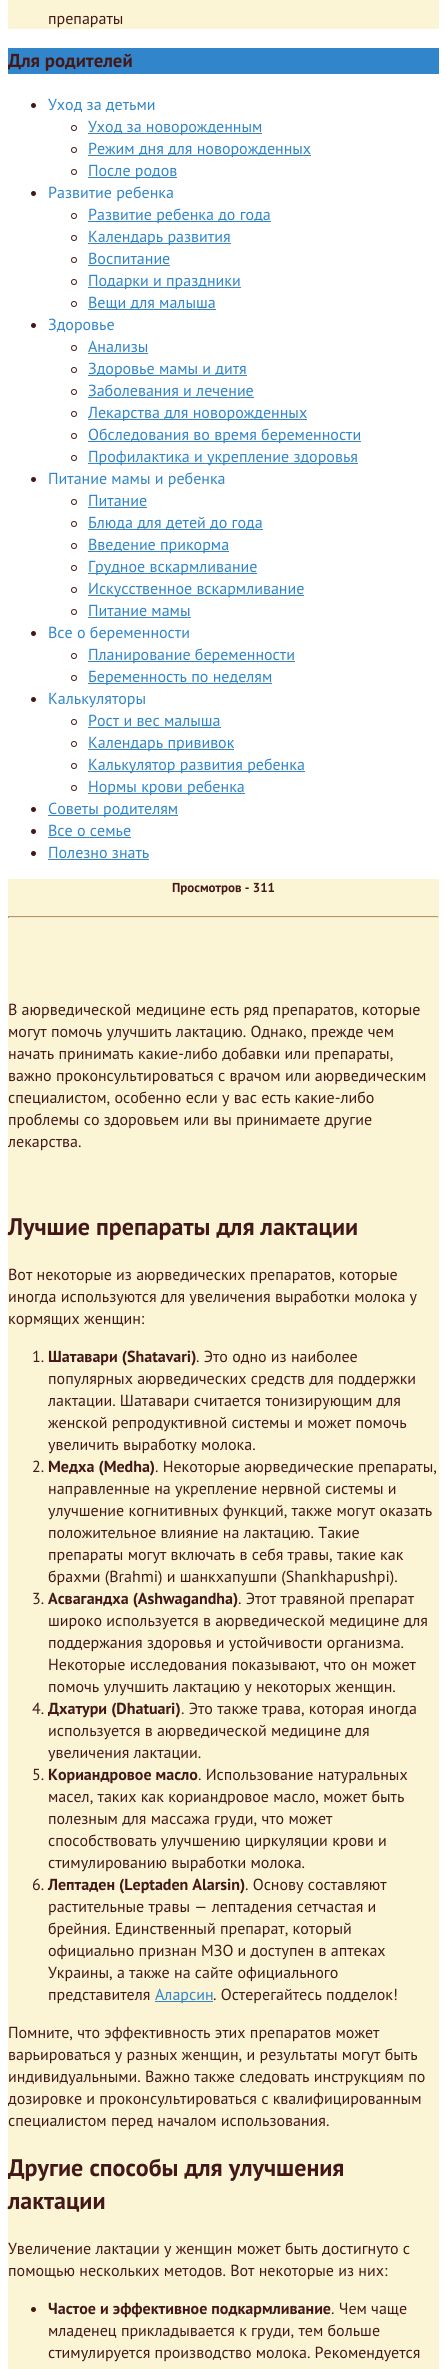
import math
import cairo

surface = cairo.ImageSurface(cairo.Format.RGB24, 447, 2369)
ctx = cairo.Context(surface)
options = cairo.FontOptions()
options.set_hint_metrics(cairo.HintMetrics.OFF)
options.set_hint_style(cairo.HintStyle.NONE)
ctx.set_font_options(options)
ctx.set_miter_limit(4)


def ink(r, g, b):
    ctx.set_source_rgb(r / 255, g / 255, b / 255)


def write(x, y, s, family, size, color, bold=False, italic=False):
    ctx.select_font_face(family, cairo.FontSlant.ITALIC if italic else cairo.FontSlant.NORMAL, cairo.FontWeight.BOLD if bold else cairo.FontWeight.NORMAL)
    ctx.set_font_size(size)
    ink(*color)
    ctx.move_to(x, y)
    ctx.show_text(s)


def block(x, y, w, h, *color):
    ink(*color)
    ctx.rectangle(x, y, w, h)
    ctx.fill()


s1 = dict(family="PT Sans", size=16, color=(68, 24, 24))
s2 = dict(family="PT Sans", size=18.75, color=(68, 24, 24), bold=True)
s3 = dict(family="PT Sans", size=16, color=(49, 133, 203))
s4 = dict(family="PT Sans", size=13, color=(68, 24, 24), bold=True)
s5 = dict(family="PT Sans", size=24, color=(68, 24, 24), bold=True)
s6 = dict(family="PT Sans", size=16, color=(68, 24, 24), bold=True)

ink(255, 255, 255)
ctx.paint()
block(8, 0, 431, 29, 252, 245, 213)
write(48, 24, "препараты", **s1)
block(8, 48, 431, 26, 49, 133, 203)
write(8, 67, "Для родителей", **s2)
ctx.new_path()
ctx.arc(33.5, 105.5, 2.5, 0, 2 * math.pi)
ctx.fill()
write(48, 110, "Уход за детьми", **s3)
ctx.new_path()
ctx.arc(74, 128, 2.5, 0, 2 * math.pi)
ink(68, 24, 24)
ctx.set_line_width(1)
ctx.stroke()
block(88, 133, 174, 1, 49, 133, 203)
write(88, 132, "Уход за новорожденным", **s3)
ctx.new_path()
ctx.arc(74, 150, 2.5, 0, 2 * math.pi)
ink(68, 24, 24)
ctx.stroke()
block(88, 155, 223, 1, 49, 133, 203)
write(88, 154, "Режим дня для новорожденных", **s3)
ctx.new_path()
ctx.arc(74, 172, 2.5, 0, 2 * math.pi)
ink(68, 24, 24)
ctx.stroke()
block(88, 177, 89, 1, 49, 133, 203)
write(88, 176, "После родов", **s3)
ink(68, 24, 24)
ctx.new_path()
ctx.arc(33.5, 193.5, 2.5, 0, 2 * math.pi)
ctx.fill()
write(48, 198, "Развитие ребенка", **s3)
ctx.new_path()
ctx.arc(74, 216, 2.5, 0, 2 * math.pi)
ink(68, 24, 24)
ctx.stroke()
block(88, 221, 183, 1, 49, 133, 203)
write(88, 220, "Развитие ребенка до года", **s3)
ctx.new_path()
ctx.arc(74, 238, 2.5, 0, 2 * math.pi)
ink(68, 24, 24)
ctx.stroke()
block(88, 243, 143, 1, 49, 133, 203)
write(88, 242, "Календарь развития", **s3)
ctx.new_path()
ctx.arc(74, 260, 2.5, 0, 2 * math.pi)
ink(68, 24, 24)
ctx.stroke()
write(88, 264, "Воспитание", **s3)
block(88, 265, 82, 1, 49, 133, 203)
ctx.new_path()
ctx.arc(74, 282, 2.5, 0, 2 * math.pi)
ink(68, 24, 24)
ctx.stroke()
block(88, 287, 153, 1, 49, 133, 203)
write(88, 286, "Подарки и праздники", **s3)
ctx.new_path()
ctx.arc(74, 304, 2.5, 0, 2 * math.pi)
ink(68, 24, 24)
ctx.stroke()
block(88, 309, 128, 1, 49, 133, 203)
write(88, 308, "Вещи для малыша", **s3)
ink(68, 24, 24)
ctx.new_path()
ctx.arc(33.5, 325.5, 2.5, 0, 2 * math.pi)
ctx.fill()
write(48, 330, "Здоровье", **s3)
ctx.new_path()
ctx.arc(74, 348, 2.5, 0, 2 * math.pi)
ink(68, 24, 24)
ctx.stroke()
write(88, 352, "Анализы", **s3)
block(88, 353, 60, 1, 49, 133, 203)
ctx.new_path()
ctx.arc(74, 370, 2.5, 0, 2 * math.pi)
ink(68, 24, 24)
ctx.stroke()
block(88, 375, 159, 1, 49, 133, 203)
write(88, 374, "Здоровье мамы и дитя", **s3)
ctx.new_path()
ctx.arc(74, 392, 2.5, 0, 2 * math.pi)
ink(68, 24, 24)
ctx.stroke()
write(88, 396, "Заболевания и лечение", **s3)
block(88, 397, 166, 1, 49, 133, 203)
ctx.new_path()
ctx.arc(74, 414, 2.5, 0, 2 * math.pi)
ink(68, 24, 24)
ctx.stroke()
block(88, 419, 219, 1, 49, 133, 203)
write(88, 418, "Лекарства для новорожденных", **s3)
ctx.new_path()
ctx.arc(74, 436, 2.5, 0, 2 * math.pi)
ink(68, 24, 24)
ctx.stroke()
block(88, 441, 273, 1, 49, 133, 203)
write(88, 440, "Обследования во время беременности", **s3)
ctx.new_path()
ctx.arc(74, 458, 2.5, 0, 2 * math.pi)
ink(68, 24, 24)
ctx.stroke()
block(88, 463, 270, 1, 49, 133, 203)
write(88, 462, "Профилактика и укрепление здоровья", **s3)
ink(68, 24, 24)
ctx.new_path()
ctx.arc(33.5, 479.5, 2.5, 0, 2 * math.pi)
ctx.fill()
write(48, 484, "Питание мамы и ребенка", **s3)
ctx.new_path()
ctx.arc(74, 502, 2.5, 0, 2 * math.pi)
ink(68, 24, 24)
ctx.stroke()
write(88, 506, "Питание", **s3)
block(88, 507, 59, 1, 49, 133, 203)
ctx.new_path()
ctx.arc(74, 524, 2.5, 0, 2 * math.pi)
ink(68, 24, 24)
ctx.stroke()
block(88, 529, 175, 1, 49, 133, 203)
write(88, 528, "Блюда для детей до года", **s3)
ctx.new_path()
ctx.arc(74, 546, 2.5, 0, 2 * math.pi)
ink(68, 24, 24)
ctx.stroke()
block(88, 551, 141, 1, 49, 133, 203)
write(88, 550, "Введение прикорма", **s3)
ctx.new_path()
ctx.arc(74, 568, 2.5, 0, 2 * math.pi)
ink(68, 24, 24)
ctx.stroke()
block(88, 573, 169, 1, 49, 133, 203)
write(88, 572, "Грудное вскармливание", **s3)
ctx.new_path()
ctx.arc(74, 590, 2.5, 0, 2 * math.pi)
ink(68, 24, 24)
ctx.stroke()
block(88, 595, 216, 1, 49, 133, 203)
write(88, 594, "Искусственное вскармливание", **s3)
ctx.new_path()
ctx.arc(74, 612, 2.5, 0, 2 * math.pi)
ink(68, 24, 24)
ctx.stroke()
write(88, 616, "Питание мамы", **s3)
block(88, 617, 103, 1, 49, 133, 203)
ink(68, 24, 24)
ctx.new_path()
ctx.arc(33.5, 633.5, 2.5, 0, 2 * math.pi)
ctx.fill()
write(48, 638, "Все о беременности", **s3)
ctx.new_path()
ctx.arc(74, 656, 2.5, 0, 2 * math.pi)
ink(68, 24, 24)
ctx.stroke()
block(88, 661, 207, 1, 49, 133, 203)
write(88, 660, "Планирование беременности", **s3)
ctx.new_path()
ctx.arc(74, 678, 2.5, 0, 2 * math.pi)
ink(68, 24, 24)
ctx.stroke()
block(88, 683, 184, 1, 49, 133, 203)
write(88, 682, "Беременность по неделям", **s3)
ink(68, 24, 24)
ctx.new_path()
ctx.arc(33.5, 699.5, 2.5, 0, 2 * math.pi)
ctx.fill()
write(48, 704, "Калькуляторы", **s3)
ctx.new_path()
ctx.arc(74, 722, 2.5, 0, 2 * math.pi)
ink(68, 24, 24)
ctx.stroke()
write(88, 726, "Рост и вес малыша", **s3)
block(88, 727, 133, 1, 49, 133, 203)
ctx.new_path()
ctx.arc(74, 744, 2.5, 0, 2 * math.pi)
ink(68, 24, 24)
ctx.stroke()
block(88, 749, 146, 1, 49, 133, 203)
write(88, 748, "Календарь прививок", **s3)
ctx.new_path()
ctx.arc(74, 766, 2.5, 0, 2 * math.pi)
ink(68, 24, 24)
ctx.stroke()
block(88, 771, 217, 1, 49, 133, 203)
write(88, 770, "Калькулятор развития ребенка", **s3)
ctx.new_path()
ctx.arc(74, 788, 2.5, 0, 2 * math.pi)
ink(68, 24, 24)
ctx.stroke()
block(88, 793, 157, 1, 49, 133, 203)
write(88, 792, "Нормы крови ребенка", **s3)
ink(68, 24, 24)
ctx.new_path()
ctx.arc(33.5, 809.5, 2.5, 0, 2 * math.pi)
ctx.fill()
block(48, 815, 130, 1, 49, 133, 203)
write(48, 814, "Советы родителям", **s3)
ink(68, 24, 24)
ctx.new_path()
ctx.arc(33.5, 831.5, 2.5, 0, 2 * math.pi)
ctx.fill()
write(48, 836, "Все о семье", **s3)
block(48, 837, 83, 1, 49, 133, 203)
ink(68, 24, 24)
ctx.new_path()
ctx.arc(33.5, 853.5, 2.5, 0, 2 * math.pi)
ctx.fill()
write(48, 858, "Полезно знать", **s3)
block(48, 859, 101, 1, 49, 133, 203)
block(8, 879, 431, 1490, 252, 245, 213)
write(172, 892, "Просмотров - 311", **s4)
block(8, 916, 431, 1, 169, 153, 120)
block(438, 916, 1, 2, 254, 230, 180)
block(8, 917, 431, 1, 254, 230, 180)
block(8, 916, 1, 2, 169, 153, 120)
write(8, 1015, "В аюрведической медицине есть ряд препаратов, которые", **s1)
write(8, 1037, "могут помочь улучшить лактацию. Однако, прежде чем", **s1)
write(8, 1059, "начать принимать какие-либо добавки или препараты,", **s1)
write(8, 1081, "важно проконсультироваться с врачом или аюрведическим", **s1)
write(8, 1103, "специалистом, особенно если у вас есть какие-либо", **s1)
write(8, 1125, "проблемы со здоровьем или вы принимаете другие", **s1)
write(8, 1147, "лекарства.", **s1)
write(8, 1235, "Лучшие препараты для лактации", **s5)
write(8, 1280, "Вот некоторые из аюрведических препаратов, которые", **s1)
write(8, 1302, "иногда используются для увеличения выработки молока у", **s1)
write(8, 1324, "кормящих женщин:", **s1)
write(32, 1362, "1.", **s1)
write(48, 1362, "Шатавари (Shatavari)", **s6)
write(196, 1362, ". Это одно из наиболее", **s1)
write(48, 1384, "популярных аюрведических средств для поддержки", **s1)
write(48, 1406, "лактации. Шатавари считается тонизирующим для", **s1)
write(48, 1428, "женской репродуктивной системы и может помочь", **s1)
write(48, 1450, "увеличить выработку молока.", **s1)
write(32, 1472, "2.", **s1)
write(48, 1472, "Медха (Medha)", **s6)
write(155, 1472, ". Некоторые аюрведические препараты,", **s1)
write(48, 1494, "направленные на укрепление нервной системы и", **s1)
write(48, 1516, "улучшение когнитивных функций, также могут оказать", **s1)
write(48, 1538, "положительное влияние на лактацию. Такие", **s1)
write(48, 1560, "препараты могут включать в себя травы, такие как", **s1)
write(48, 1582, "брахми (Brahmi) и шанкхапушпи (Shankhapushpi).", **s1)
write(32, 1604, "3.", **s1)
write(48, 1604, "Асвагандха (Ashwagandha)", **s6)
write(238, 1604, ". Этот травяной препарат", **s1)
write(48, 1626, "широко используется в аюрведической медицине для", **s1)
write(48, 1648, "поддержания здоровья и устойчивости организма.", **s1)
write(48, 1670, "Некоторые исследования показывают, что он может", **s1)
write(48, 1692, "помочь улучшить лактацию у некоторых женщин.", **s1)
write(32, 1714, "4.", **s1)
write(48, 1714, "Дхатури (Dhatuari)", **s6)
write(181, 1714, ". Это также трава, которая иногда", **s1)
write(48, 1736, "используется в аюрведической медицине для", **s1)
write(48, 1758, "увеличения лактации.", **s1)
write(32, 1780, "5.", **s1)
write(48, 1780, "Кориандровое масло", **s6)
write(198, 1780, ". Использование натуральных", **s1)
write(48, 1802, "масел, таких как кориандровое масло, может быть", **s1)
write(48, 1824, "полезным для массажа груди, что может", **s1)
write(48, 1846, "способствовать улучшению циркуляции крови и", **s1)
write(48, 1868, "стимулированию выработки молока.", **s1)
write(32, 1890, "6.", **s1)
write(48, 1890, "Лептаден (Leptaden Alarsin)", **s6)
write(245, 1890, ". Основу составляют", **s1)
write(48, 1912, "растительные травы — лептадения сетчастая и", **s1)
write(48, 1934, "брейния. Единственный препарат, который", **s1)
write(48, 1956, "официально признан МЗО и доступен в аптеках", **s1)
write(48, 1978, "Украины, а также на сайте официального", **s1)
write(48, 2000, "представителя", **s1)
block(155, 2001, 58, 1, 49, 133, 203)
write(155, 2000, "Аларсин", **s3)
write(213, 2000, ". Остерегайтесь подделок!", **s1)
write(8, 2038, "Помните, что эффективность этих препаратов может", **s1)
write(8, 2060, "варьироваться у разных женщин, и результаты могут быть", **s1)
write(8, 2082, "индивидуальными. Важно также следовать инструкциям по", **s1)
write(8, 2104, "дозировке и проконсультироваться с квалифицированным", **s1)
write(8, 2126, "специалистом перед началом использования.", **s1)
write(8, 2176, "Другие способы для улучшения", **s5)
write(8, 2209, "лактации", **s5)
write(8, 2254, "Увеличение лактации у женщин может быть достигнуто с", **s1)
write(8, 2276, "помощью нескольких методов. Вот некоторые из них:", **s1)
ctx.new_path()
ctx.arc(33.5, 2309.5, 2.5, 0, 2 * math.pi)
ctx.fill()
write(48, 2314, "Частое и эффективное подкармливание", **s6)
write(331, 2314, ". Чем чаще", **s1)
write(48, 2336, "младенец прикладывается к груди, тем больше", **s1)
write(48, 2358, "стимулируется производство молока. Рекомендуется", **s1)
surface.write_to_png("screenshot.png")
